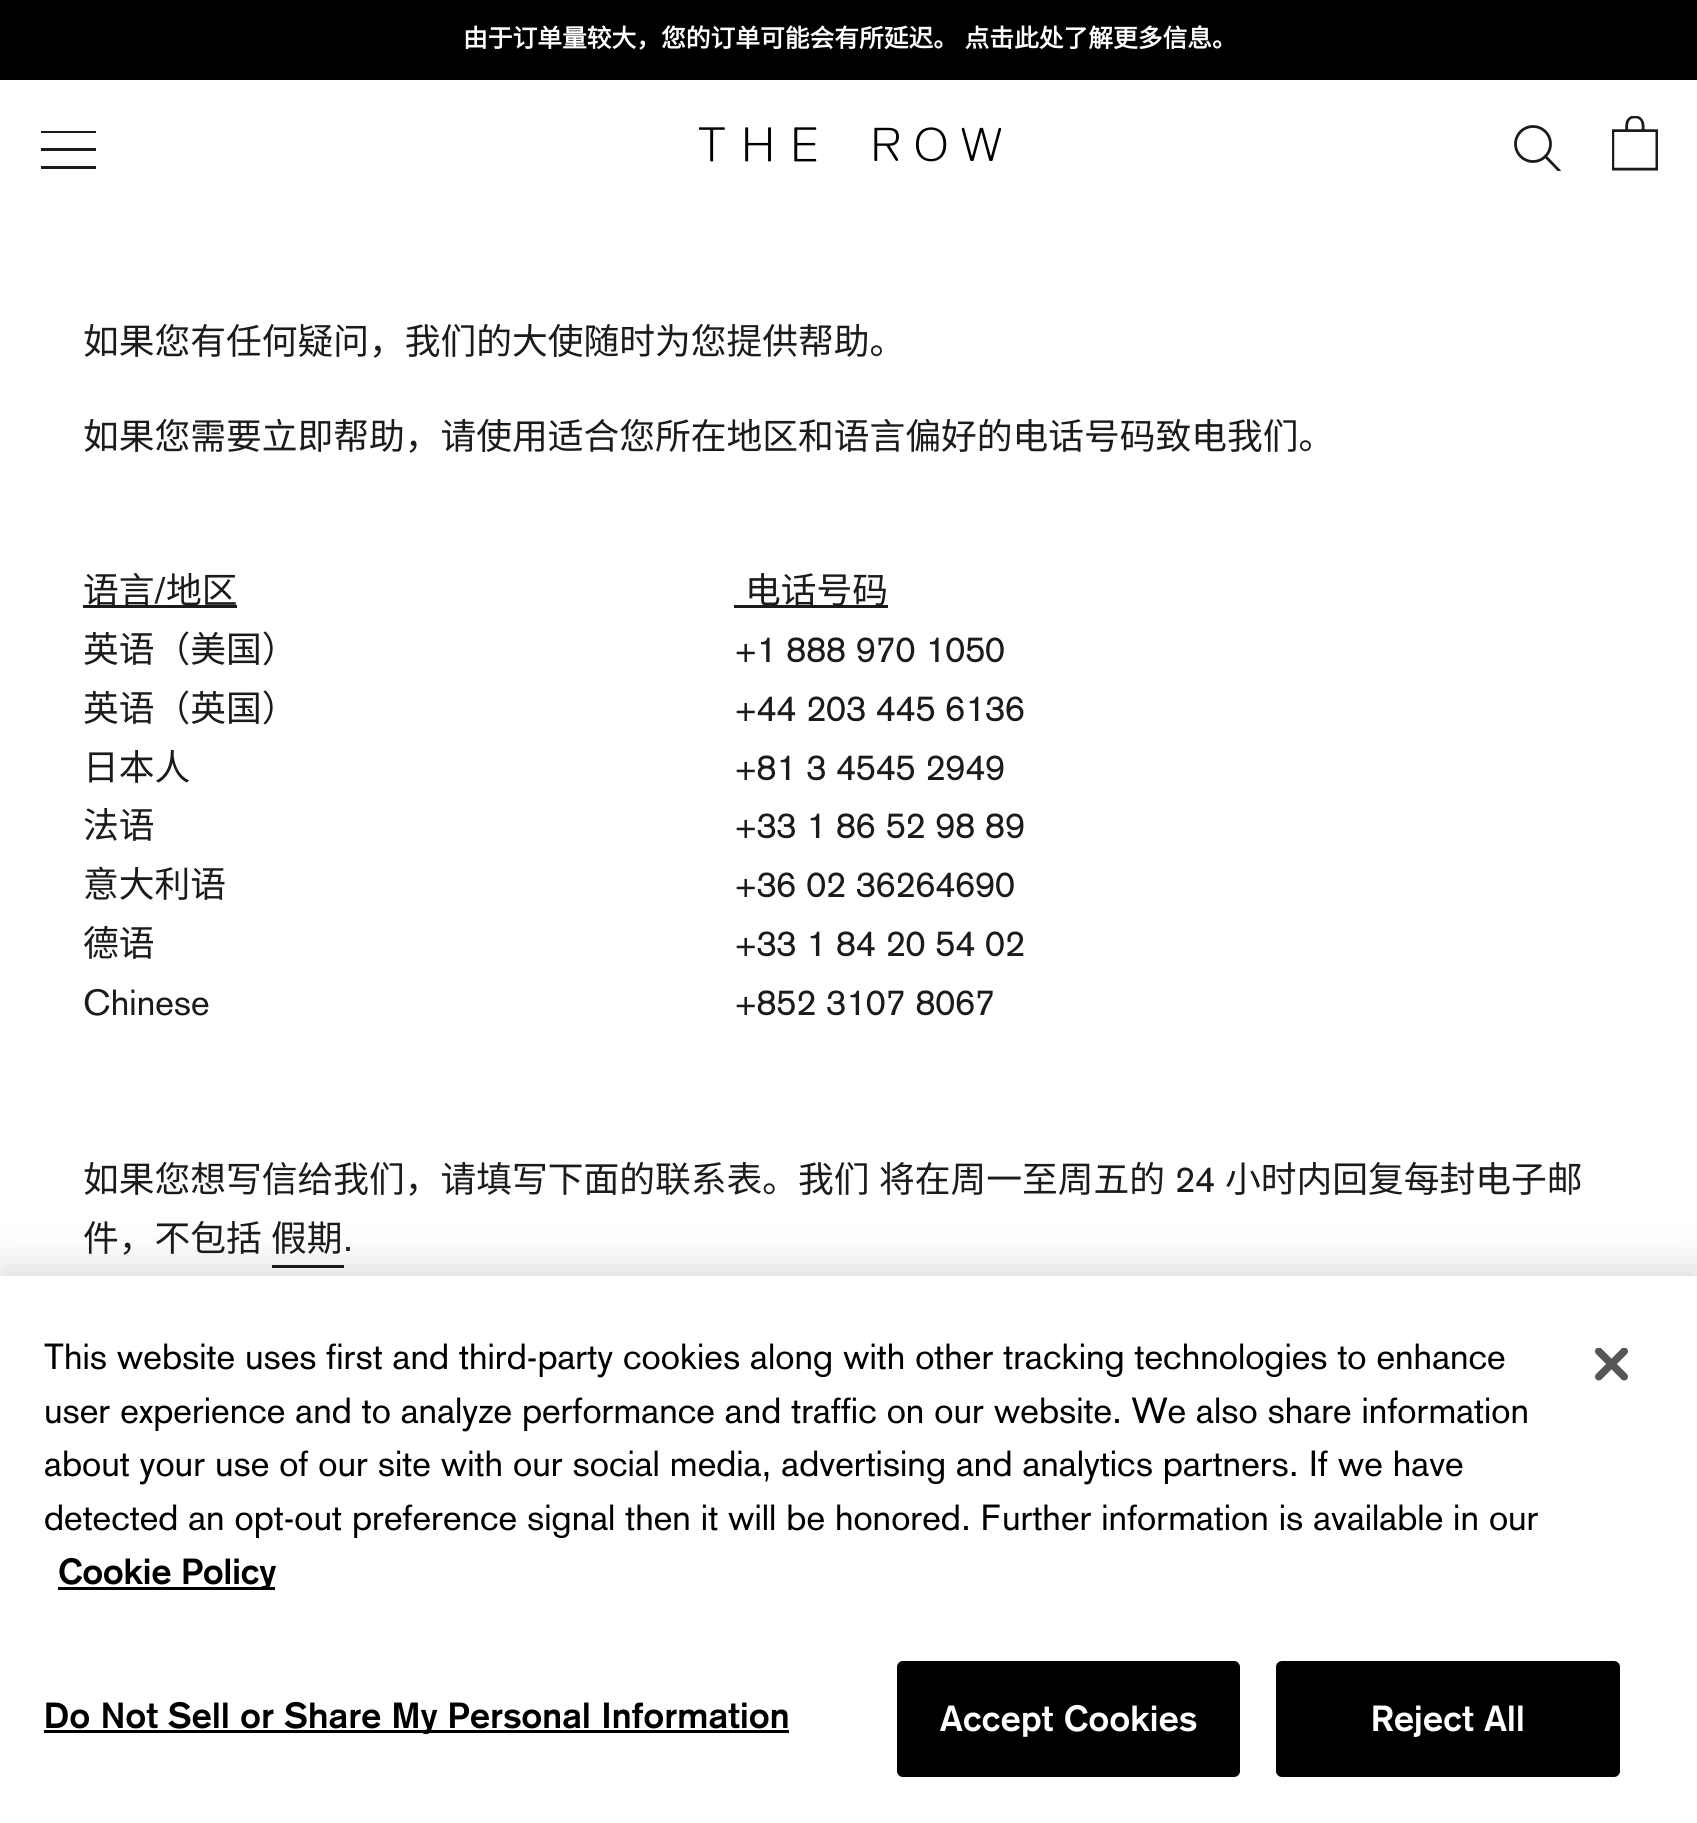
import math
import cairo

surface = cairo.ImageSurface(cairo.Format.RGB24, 1697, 1823)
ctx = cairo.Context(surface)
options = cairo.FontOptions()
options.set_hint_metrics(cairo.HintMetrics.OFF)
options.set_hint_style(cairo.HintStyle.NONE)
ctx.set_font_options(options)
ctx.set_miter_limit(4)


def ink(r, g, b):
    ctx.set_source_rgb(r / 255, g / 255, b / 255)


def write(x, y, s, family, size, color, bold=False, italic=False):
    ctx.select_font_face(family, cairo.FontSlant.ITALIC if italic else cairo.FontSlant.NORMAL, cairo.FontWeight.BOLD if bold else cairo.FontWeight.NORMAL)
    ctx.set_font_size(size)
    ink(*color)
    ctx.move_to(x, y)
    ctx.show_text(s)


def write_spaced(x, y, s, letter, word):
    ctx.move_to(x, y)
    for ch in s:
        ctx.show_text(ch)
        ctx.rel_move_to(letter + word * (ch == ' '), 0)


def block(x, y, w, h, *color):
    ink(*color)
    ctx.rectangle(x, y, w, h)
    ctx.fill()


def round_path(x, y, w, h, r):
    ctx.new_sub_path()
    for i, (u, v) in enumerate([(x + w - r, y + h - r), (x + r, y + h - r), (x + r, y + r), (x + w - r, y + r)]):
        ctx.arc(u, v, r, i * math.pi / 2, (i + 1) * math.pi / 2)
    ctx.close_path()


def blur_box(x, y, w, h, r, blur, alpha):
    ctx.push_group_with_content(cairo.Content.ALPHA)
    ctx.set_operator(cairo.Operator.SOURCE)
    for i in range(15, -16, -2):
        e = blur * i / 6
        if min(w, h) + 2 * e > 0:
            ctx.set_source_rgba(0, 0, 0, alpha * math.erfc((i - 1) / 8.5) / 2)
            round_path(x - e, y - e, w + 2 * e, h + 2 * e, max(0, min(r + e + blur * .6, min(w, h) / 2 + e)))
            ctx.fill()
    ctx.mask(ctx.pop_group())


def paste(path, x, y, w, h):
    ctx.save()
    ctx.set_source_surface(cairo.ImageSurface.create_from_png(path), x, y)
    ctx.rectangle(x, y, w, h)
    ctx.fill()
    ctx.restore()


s1 = dict(family="Noto Sans CJK SC", size=35.75, color=(28, 27, 27))
s2 = dict(family="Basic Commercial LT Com", size=35.75, color=(28, 27, 27))
s3 = dict(family="Basic Commercial LT Com", size=35.75, color=(0, 0, 0))
s4 = dict(family="Basic Commercial LT Com", size=35.75, color=(0, 0, 0), bold=True)

ink(255, 255, 255)
ctx.paint()
block(0, 0, 1697, 80, 0, 0, 0)
ctx.select_font_face("Noto Sans CJK SC", cairo.FontSlant.NORMAL, cairo.FontWeight.BOLD)
ctx.set_font_size(24.75)
ink(255, 255, 255)
write_spaced(463, 47, "由于订单量较大，您的订单可能会有所延迟。 点击此处了解更多信息。", 0, 1)
ink(28, 27, 27)
ctx.new_path()
ctx.move_to(41, 169)
ctx.line_to(41, 166)
ctx.line_to(96, 166)
ctx.line_to(96, 169)
ctx.close_path()
ctx.move_to(41, 148)
ctx.line_to(96, 148)
ctx.line_to(96, 151)
ctx.line_to(41, 151)
ctx.close_path()
ctx.move_to(41, 131)
ctx.line_to(96, 131)
ctx.line_to(96, 133)
ctx.line_to(41, 133)
ctx.close_path()
ctx.fill()
paste("pic1.png", 699, 127, 302, 35)
ctx.save()
ctx.rectangle(1513, 124, 49, 47)
ctx.clip()
ctx.new_path()
ctx.move_to(1559, 170.5)
ctx.line_to(1545.5, 156.5)
ctx.set_line_width(2.8)
ctx.set_line_cap(cairo.LineCap.SQUARE)
ctx.stroke()
ctx.restore()
ctx.arc(1533, 144, 17.5, 0, 2 * math.pi)
ctx.set_line_width(2.8)
ctx.stroke()
paste("pic2.png", 1612, 116, 46, 55)
write(83, 354, "如果您有任何疑问，我们的大使随时为您提供帮助。", **s1)
write(83, 449, "如果您需要立即帮助，请使用适合您所在地区和语言偏好的电话号码致电我们。", **s1)
block(83, 605, 154, 3, 28, 27, 27)
write(83, 603, "语言", **s1)
write(154, 603, "/", **s2)
write(166, 603, "地区", **s1)
block(734, 605, 154, 3, 28, 27, 27)
write(745, 603, "电话号码", **s1)
write(83, 662, "英语（美国）", **s1)
write(735, 662, "+1 888 970 1050", **s2)
write(83, 721, "英语（英国）", **s1)
write(735, 721, "+44 203 445 6136", **s2)
write(83, 780, "日本人", **s1)
write(735, 780, "+81 3 4545 2949", **s2)
write(83, 838, "法语", **s1)
write(735, 838, "+33 1 86 52 98 89", **s2)
write(83, 897, "意大利语", **s1)
write(735, 897, "+36 02 36264690", **s2)
write(83, 956, "德语", **s1)
write(735, 956, "+33 1 84 20 54 02", **s2)
write(83, 1015, "Chinese", **s2)
write(735, 1015, "+852 3107 8067", **s2)
write(83, 1192, "如果您想写信给我们，请填写下面的联系表。我们", **s1)
write(879, 1192, "将在周一至周五的", **s1)
write(1175, 1192, "24", **s2)
write(1225, 1192, "小时内回复每封电子邮", **s1)
write(83, 1251, "件，不包括", **s1)
write(271, 1251, "假期", **s1)
block(272, 1265, 72, 3, 28, 27, 27)
write(343, 1251, ".", **s2)
ink(0, 0, 0)
blur_box(0, 1276, 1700, 547, 0, 25, 0.2)
block(0, 1276, 1697, 547, 255, 255, 255)
write(44, 1369, "This website uses first and third-party cookies along with other tracking technologies to enhance", **s3)
write(44, 1423, "user experience and to analyze performance and traffic on our website. We also share information", **s3)
write(44, 1476, "about your use of our site with our social media, advertising and analytics partners. If we have", **s3)
write(44, 1530, "detected an opt-out preference signal then it will be honored. Further information is available in our", **s3)
block(58, 1587, 217, 3, 0, 0, 0)
write(58, 1584, "Cookie Policy", **s4)
block(44, 1730, 745, 3, 0, 0, 0)
write_spaced(44, 1728, "Do Not Sell or Share My Personal Information", 0.35, 0)
round_path(898.5, 1662.5, 340, 113, 4.5)
ctx.fill_preserve()
ctx.set_line_width(3)
ctx.stroke()
ink(255, 255, 255)
write_spaced(940, 1731, "Accept Cookies", 0.35, 0)
ink(0, 0, 0)
round_path(1277.5, 1662.5, 341, 113, 4.5)
ctx.fill_preserve()
ctx.stroke()
ink(255, 255, 255)
write_spaced(1371, 1731, "Reject All", 0.35, 0)
paste("pic3.png", 1595, 1348, 33, 33)
surface.write_to_png("screenshot.png")
